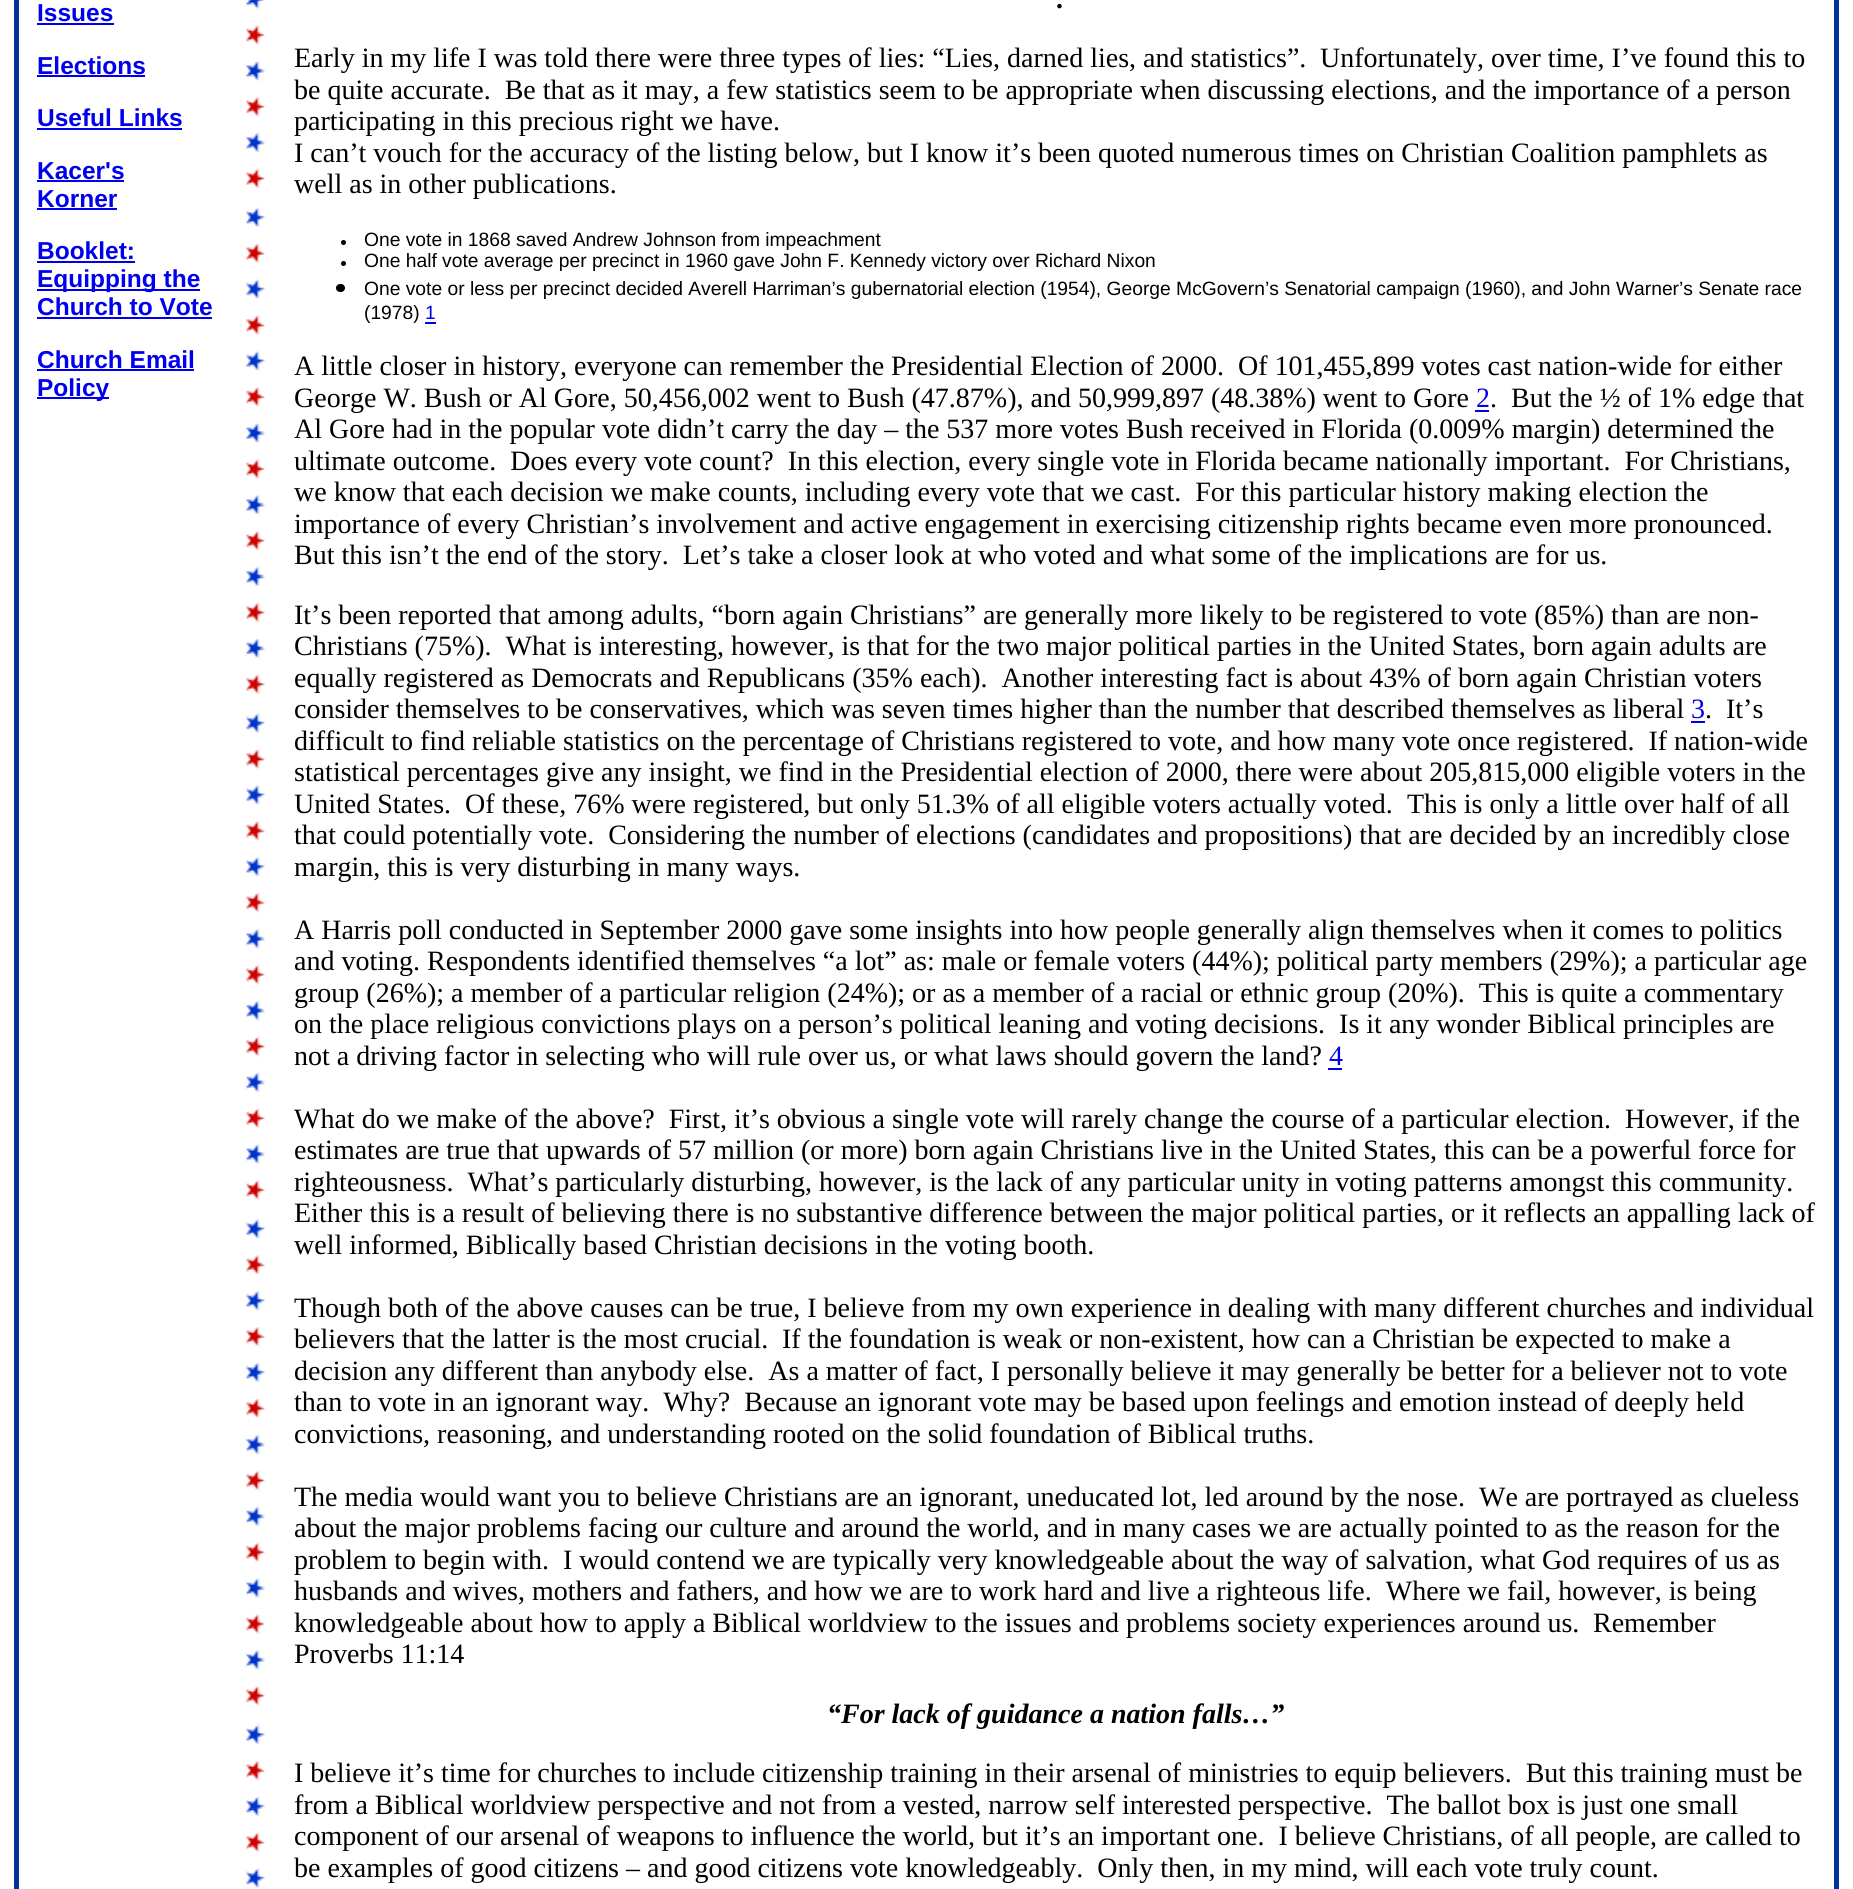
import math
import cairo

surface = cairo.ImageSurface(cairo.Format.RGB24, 1853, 1889)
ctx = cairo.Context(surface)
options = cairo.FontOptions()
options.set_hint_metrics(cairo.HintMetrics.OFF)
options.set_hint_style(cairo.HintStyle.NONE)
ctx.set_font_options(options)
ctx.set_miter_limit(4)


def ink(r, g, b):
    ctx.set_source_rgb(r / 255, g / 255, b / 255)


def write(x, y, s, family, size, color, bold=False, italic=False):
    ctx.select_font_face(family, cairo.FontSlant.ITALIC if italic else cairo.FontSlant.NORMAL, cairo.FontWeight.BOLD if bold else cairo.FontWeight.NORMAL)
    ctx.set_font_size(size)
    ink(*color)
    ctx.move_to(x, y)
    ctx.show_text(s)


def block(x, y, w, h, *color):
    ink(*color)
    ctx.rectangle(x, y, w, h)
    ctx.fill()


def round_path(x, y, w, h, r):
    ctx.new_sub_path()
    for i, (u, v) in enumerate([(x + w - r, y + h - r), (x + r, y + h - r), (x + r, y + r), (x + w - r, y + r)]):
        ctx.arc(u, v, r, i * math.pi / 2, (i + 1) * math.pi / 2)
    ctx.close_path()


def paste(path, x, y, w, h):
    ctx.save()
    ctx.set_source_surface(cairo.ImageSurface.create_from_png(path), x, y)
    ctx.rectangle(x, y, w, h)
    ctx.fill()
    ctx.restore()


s1 = dict(family="Liberation Sans", size=24.5, color=(0, 0, 238), bold=True)
s2 = dict(family="Liberation Serif", size=28, color=(0, 0, 0), bold=True, italic=True)
s3 = dict(family="Liberation Serif", size=28, color=(0, 0, 0))
s4 = dict(family="Liberation Sans", size=19.25, color=(0, 0, 0))
s5 = dict(family="Liberation Sans", size=19.25, color=(0, 0, 238))
s6 = dict(family="Liberation Serif", size=28, color=(0, 0, 238))

ink(255, 255, 255)
ctx.paint()
paste("pic1.png", 245, 0, 20, 1888)
block(14, 0, 5, 1889, 0, 51, 153)
write(37, 21, "Issues", **s1)
block(37, 23, 77, 2, 0, 0, 238)
write(37, 74, "Elections", **s1)
block(37, 75, 108, 2, 0, 0, 238)
write(37, 126, "Useful Links", **s1)
block(37, 128, 145, 2, 0, 0, 238)
write(37, 179, "Kacer's", **s1)
block(37, 180, 87, 2, 0, 0, 238)
write(37, 207, "Korner", **s1)
block(37, 208, 80, 2, 0, 0, 238)
write(37, 259, "Booklet:", **s1)
block(37, 261, 98, 2, 0, 0, 238)
block(37, 289, 163, 2, 0, 0, 238)
write(37, 287, "Equipping the", **s1)
write(37, 315, "Church to Vote", **s1)
block(37, 317, 175, 2, 0, 0, 238)
write(37, 368, "Church Email", **s1)
block(37, 369, 157, 2, 0, 0, 238)
block(37, 397, 72, 2, 0, 0, 238)
write(37, 396, "Policy", **s1)
block(1834, 0, 5, 1889, 0, 51, 153)
write(1057, 8, ".", **s2)
write(294, 67, "Early in my life I was told there were three types of lies: “Lies, darned lies, and statistics”.", **s3)
write(1320, 67, "Unfortunately, over time, I’ve found this to", **s3)
write(294, 99, "be quite accurate.  Be that as it may, a few statistics seem to be appropriate when discussing elections, and the importance of a person", **s3)
write(294, 130, "participating in this precious right we have.", **s3)
write(294, 162, "I can’t vouch for the accuracy of the listing below, but I know it’s been quoted numerous times on Christian Coalition pamphlets as", **s3)
write(294, 193, "well as in other publications.", **s3)
ctx.new_path()
ctx.arc(343.5, 242.5, 2.5, 0, 2 * math.pi)
ctx.fill()
write(364, 246, "One vote in 1868 saved Andrew Johnson from impeachment", **s4)
ctx.new_path()
ctx.arc(343.5, 263.5, 2.5, 0, 2 * math.pi)
ctx.fill()
write(364, 267, "One half vote average per precinct in 1960 gave John F. Kennedy victory over Richard Nixon", **s4)
round_path(336, 284, 9, 8, 4)
ctx.fill()
write(364, 295, "One vote or less per precinct decided Averell Harriman’s gubernatorial election (1954), George McGovern’s Senatorial campaign (1960), and John Warner’s Senate race", **s4)
write(364, 319, "(1978)", **s4)
write(425, 319, "1", **s5)
block(425, 322, 11, 2, 0, 0, 238)
write(294, 375, "A little closer in history, everyone can remember the Presidential Election of 2000.  Of 101,455,899 votes cast nation-wide for either", **s3)
write(294, 407, "George W. Bush or Al Gore, 50,456,002 went to Bush (47.87%), and 50,999,897 (48.38%) went to Gore", **s3)
write(1476, 407, "2", **s6)
block(1475, 410, 14, 2, 0, 0, 238)
write(1490, 407, ".  But the ½ of 1% edge that", **s3)
write(294, 438, "Al Gore had in the popular vote didn’t carry the day – the 537 more votes Bush received in Florida (0.009% margin) determined the", **s3)
write(294, 470, "ultimate outcome.  Does every vote count?  In this election, every single vote in Florida became nationally important.  For Christians,", **s3)
write(294, 501, "we know that each decision we make counts, including every vote that we cast.  For this particular history making election the", **s3)
write(294, 533, "importance of every Christian’s involvement and active engagement in exercising citizenship rights became even more pronounced.", **s3)
write(294, 564, "But this isn’t the end of the story.  Let’s take a closer look at who voted and what some of the implications are for us.", **s3)
write(294, 624, "It’s been reported that among adults, “born again Christians” are generally more likely to be registered to vote (85%) than are non-", **s3)
write(294, 655, "Christians (75%).  What is interesting, however, is that for the two major political parties in the United States, born again adults are", **s3)
write(294, 687, "equally registered as Democrats and Republicans (35% each).  Another interesting fact is about 43% of born again Christian voters", **s3)
write(294, 718, "consider themselves to be conservatives, which was seven times higher than the number that described themselves as liberal", **s3)
write(1691, 718, "3", **s6)
block(1691, 721, 14, 2, 0, 0, 238)
write(1705, 718, ".  It’s", **s3)
write(294, 750, "difficult to find reliable statistics on the percentage of Christians registered to vote, and how many vote once registered.  If nation-wide", **s3)
write(294, 781, "statistical percentages give any insight, we find in the Presidential election of 2000, there were about 205,815,000 eligible voters in the", **s3)
write(294, 813, "United States.  Of these, 76% were registered, but only 51.3% of all eligible voters actually voted.", **s3)
write(1407, 813, "This is only a little over half of all", **s3)
write(294, 844, "that could potentially vote.  Considering the number of elections (candidates and propositions) that are decided by an incredibly close", **s3)
write(294, 876, "margin, this is very disturbing in many ways.", **s3)
write(294, 939, "A Harris poll conducted in September 2000 gave some insights into how people generally align themselves when it comes to politics", **s3)
write(294, 970, "and voting. Respondents identified themselves “a lot” as: male or female voters (44%); political party members (29%); a particular age", **s3)
write(294, 1002, "group (26%); a member of a particular religion (24%); or as a member of a racial or ethnic group (20%).  This is quite a commentary", **s3)
write(294, 1033, "on the place religious convictions plays on a person’s political leaning and voting decisions.  Is it any wonder Biblical principles are", **s3)
write(294, 1065, "not a driving factor in selecting who will rule over us, or what laws should govern the land?", **s3)
write(1329, 1065, "4", **s6)
block(1328, 1068, 14, 2, 0, 0, 238)
write(294, 1128, "What do we make of the above?  First, it’s obvious a single vote will rarely change the course of a particular election.  However, if the", **s3)
write(294, 1159, "estimates are true that upwards of 57 million (or more) born again Christians live in the United States, this can be a powerful force for", **s3)
write(294, 1191, "righteousness.  What’s particularly disturbing, however, is the lack of any particular unity in voting patterns amongst this community.", **s3)
write(294, 1222, "Either this is a result of believing there is no substantive difference between the major political parties, or it reflects an appalling lack of", **s3)
write(294, 1254, "well informed, Biblically based Christian decisions in the voting booth.", **s3)
write(294, 1317, "Though both of the above causes can be true, I believe from my own experience in dealing with many different churches and individual", **s3)
write(294, 1348, "believers that the latter is the most crucial.", **s3)
write(782, 1348, "If the foundation is weak or non-existent, how can a Christian be expected to make a", **s3)
write(294, 1380, "decision any different than anybody else.  As a matter of fact, I personally believe it may generally be better for a believer not to vote", **s3)
write(294, 1411, "than to vote in an ignorant way.  Why?  Because an ignorant vote may be based upon feelings and emotion instead of deeply held", **s3)
write(294, 1443, "convictions, reasoning, and understanding rooted on the solid foundation of Biblical truths.", **s3)
write(294, 1506, "The media would want you to believe Christians are an ignorant, uneducated lot, led around by the nose.  We are portrayed as clueless", **s3)
write(294, 1537, "about the major problems facing our culture and around the world, and in many cases we are actually pointed to as the reason for the", **s3)
write(294, 1569, "problem to begin with.", **s3)
write(563, 1569, "I would contend we are typically very knowledgeable about the way of salvation, what God requires of us as", **s3)
write(294, 1600, "husbands and wives, mothers and fathers, and how we are to work hard and live a righteous life.  Where we fail, however, is being", **s3)
write(294, 1632, "knowledgeable about how to apply a Biblical worldview to the issues and problems society experiences around us.", **s3)
write(1593, 1632, "Remember", **s3)
write(294, 1663, "Proverbs 11:14", **s3)
write(827, 1723, "“For lack of guidance a nation falls…”", **s2)
write(294, 1782, "I believe it’s time for churches to include citizenship training in their arsenal of ministries to equip believers.  But this training must be", **s3)
write(294, 1814, "from a Biblical worldview perspective and not from a vested, narrow self interested perspective.  The ballot box is just one small", **s3)
write(294, 1845, "component of our arsenal of weapons to influence the world, but it’s an important one.  I believe Christians, of all people, are called to", **s3)
write(294, 1877, "be examples of good citizens – and good citizens vote knowledgeably.  Only then, in my mind, will each vote truly count.", **s3)
surface.write_to_png("screenshot.png")
